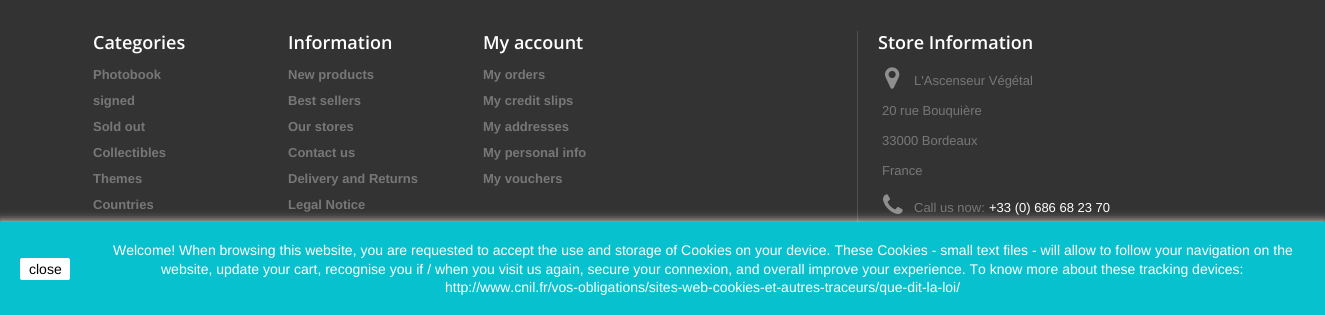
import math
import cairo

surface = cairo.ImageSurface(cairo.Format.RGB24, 1325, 315)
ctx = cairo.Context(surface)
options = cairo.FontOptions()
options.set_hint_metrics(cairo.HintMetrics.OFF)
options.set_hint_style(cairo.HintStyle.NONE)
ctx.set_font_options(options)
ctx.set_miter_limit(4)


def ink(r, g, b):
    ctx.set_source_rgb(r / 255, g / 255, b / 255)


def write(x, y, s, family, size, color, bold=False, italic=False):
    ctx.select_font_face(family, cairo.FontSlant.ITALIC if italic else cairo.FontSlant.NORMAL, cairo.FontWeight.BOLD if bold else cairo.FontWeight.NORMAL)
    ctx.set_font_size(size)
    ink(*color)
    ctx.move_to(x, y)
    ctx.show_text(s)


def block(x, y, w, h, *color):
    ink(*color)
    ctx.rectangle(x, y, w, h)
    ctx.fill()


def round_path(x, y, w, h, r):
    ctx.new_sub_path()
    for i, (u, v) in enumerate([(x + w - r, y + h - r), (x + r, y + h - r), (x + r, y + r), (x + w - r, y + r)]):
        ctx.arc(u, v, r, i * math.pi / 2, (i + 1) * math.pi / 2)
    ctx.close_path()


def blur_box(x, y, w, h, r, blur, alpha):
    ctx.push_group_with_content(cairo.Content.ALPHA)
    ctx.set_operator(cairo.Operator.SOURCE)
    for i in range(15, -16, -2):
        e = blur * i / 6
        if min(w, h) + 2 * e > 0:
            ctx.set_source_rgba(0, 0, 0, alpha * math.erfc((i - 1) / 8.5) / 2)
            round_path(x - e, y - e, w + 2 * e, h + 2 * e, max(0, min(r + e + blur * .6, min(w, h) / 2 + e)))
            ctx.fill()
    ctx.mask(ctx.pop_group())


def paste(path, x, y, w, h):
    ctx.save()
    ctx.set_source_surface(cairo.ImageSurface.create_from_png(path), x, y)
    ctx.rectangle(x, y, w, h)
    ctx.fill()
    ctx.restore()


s1 = dict(family="Open Sans SemiBold", size=18, color=(255, 255, 255))
s2 = dict(family="Liberation Sans", size=13, color=(119, 119, 119), bold=True)
s3 = dict(family="Liberation Sans", size=13, color=(119, 119, 119))
s4 = dict(family="Liberation Sans", size=13, color=(255, 255, 255))
s5 = dict(family="Liberation Sans", size=14, color=(0, 0, 0))
s6 = dict(family="Liberation Sans", size=14, color=(255, 255, 255))

ink(51, 51, 51)
ctx.paint()
write(93, 49, "Categories", **s1)
write(93, 79, "Photobook", **s2)
write(93, 105, "signed", **s2)
write(93, 131, "Sold out", **s2)
write(93, 157, "Collectibles", **s2)
write(93, 183, "Themes", **s2)
write(93, 209, "Countries", **s2)
write(288, 49, "Information", **s1)
write(288, 79, "New products", **s2)
write(288, 105, "Best sellers", **s2)
write(288, 131, "Our stores", **s2)
write(288, 157, "Contact us", **s2)
write(288, 183, "Delivery and Returns", **s2)
write(288, 209, "Legal Notice", **s2)
write(483, 49, "My account", **s1)
write(483, 79, "My orders", **s2)
write(483, 105, "My credit slips", **s2)
write(483, 131, "My addresses", **s2)
write(483, 157, "My personal info", **s2)
write(483, 183, "My vouchers", **s2)
block(857, 31, 1, 191, 81, 81, 81)
write(878, 49, "Store Information", **s1)
paste("pic1.png", 885, 67, 15, 22)
write(914, 85, "L'Ascenseur Végétal", **s3)
write(882, 115, "20 rue Bouquière", **s3)
write(882, 145, "33000 Bordeaux", **s3)
write(882, 175, "France", **s3)
paste("pic2.png", 883, 194, 20, 20)
write(914, 212, "Call us now:", **s3)
write(989, 212, "+33 (0) 686 68 23 70", **s4)
ink(255, 255, 255)
blur_box(0, 222, 1325, 93, 0, 5, 1)
block(0, 222, 1325, 93, 8, 193, 207)
ink(255, 255, 255)
round_path(20, 258, 50, 22, 2)
ctx.fill()
write(29, 274, "close", **s5)
write(113, 255, "Welcome! When browsing this website, you are requested to accept the use and storage of Cookies on your device. These Cookies - small text files - will allow to follow your navigation on the", **s6)
write(161, 274, "website, update your cart, recognise you if / when you visit us again, secure your connexion, and overall improve your experience. To know more about these tracking devices:", **s6)
write(445, 292, "http://www.cnil.fr/vos-obligations/sites-web-cookies-et-autres-traceurs/que-dit-la-loi/", **s6)
surface.write_to_png("screenshot.png")
